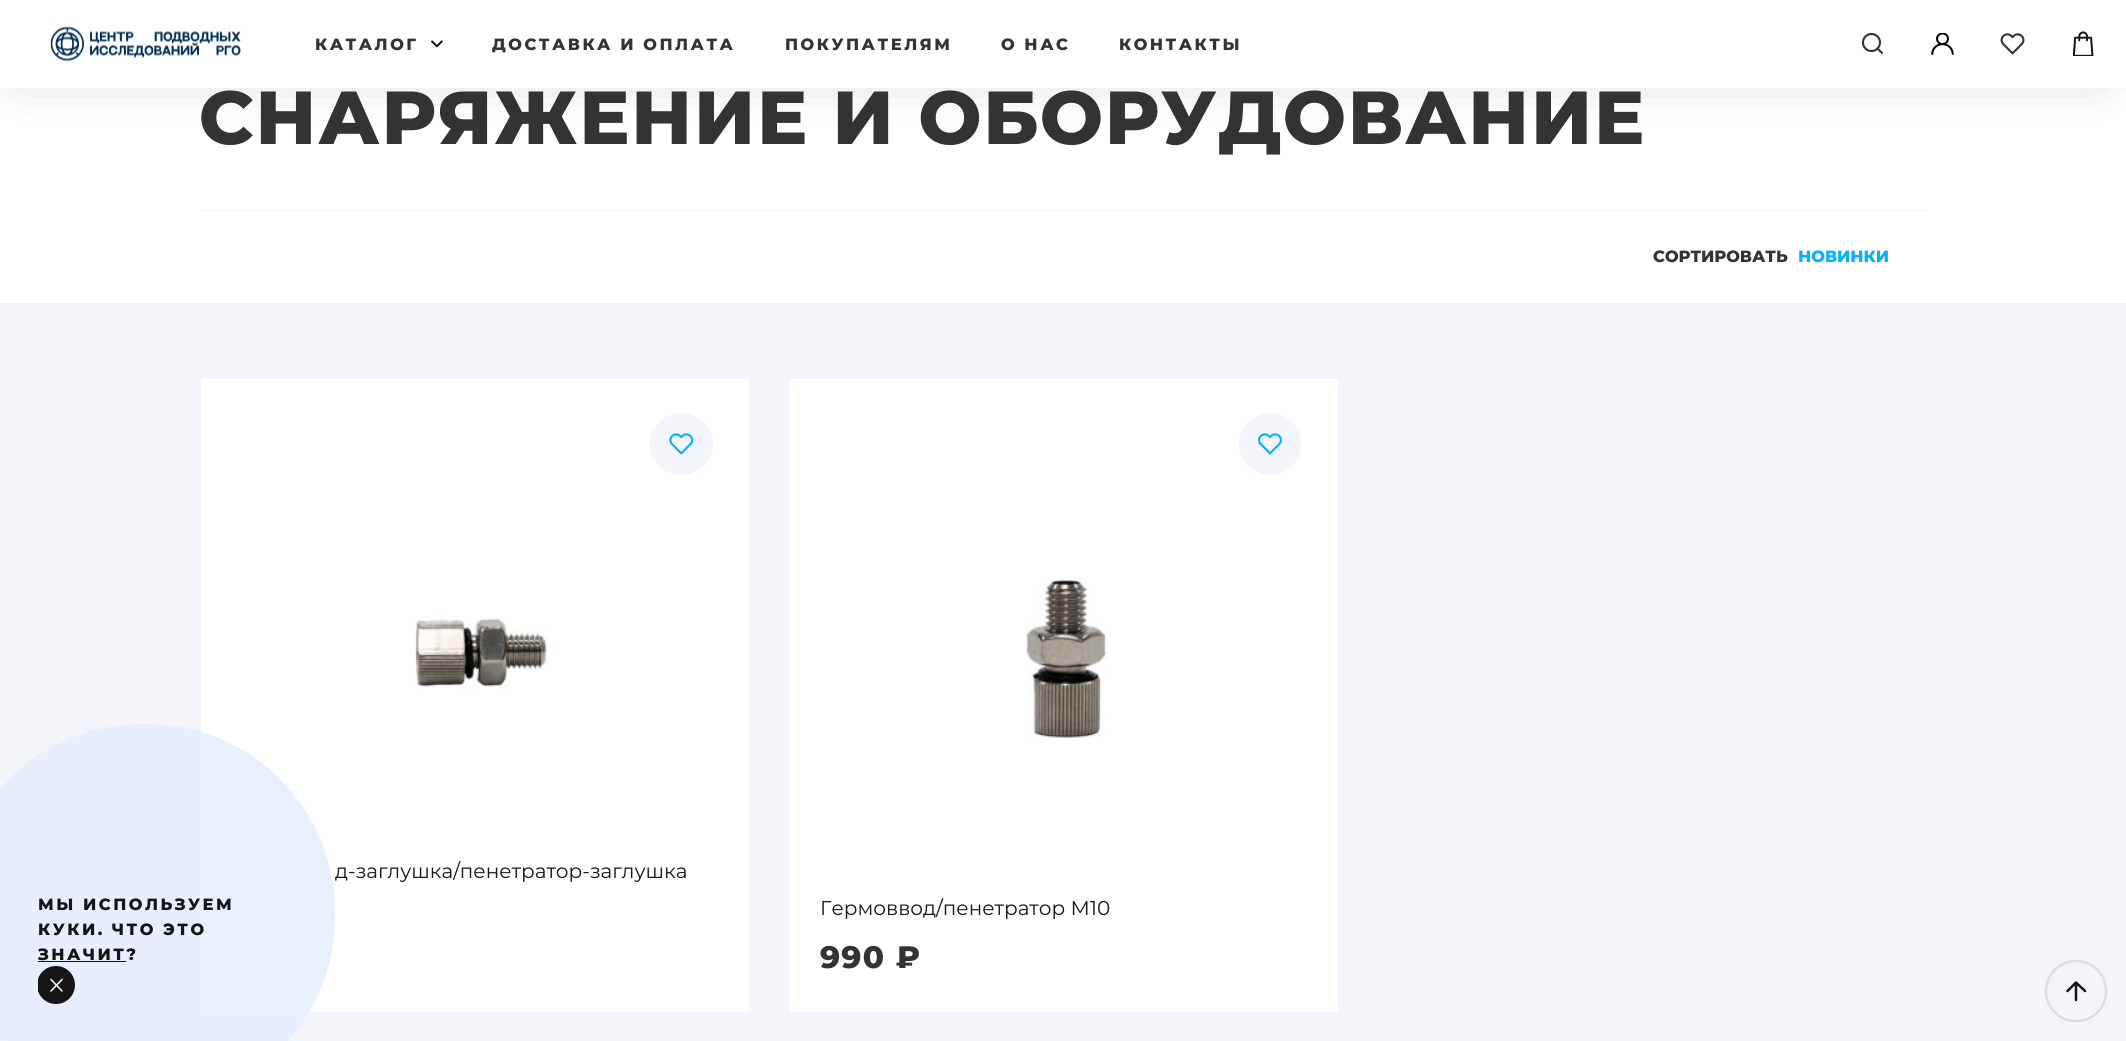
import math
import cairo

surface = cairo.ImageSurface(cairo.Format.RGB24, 2126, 1041)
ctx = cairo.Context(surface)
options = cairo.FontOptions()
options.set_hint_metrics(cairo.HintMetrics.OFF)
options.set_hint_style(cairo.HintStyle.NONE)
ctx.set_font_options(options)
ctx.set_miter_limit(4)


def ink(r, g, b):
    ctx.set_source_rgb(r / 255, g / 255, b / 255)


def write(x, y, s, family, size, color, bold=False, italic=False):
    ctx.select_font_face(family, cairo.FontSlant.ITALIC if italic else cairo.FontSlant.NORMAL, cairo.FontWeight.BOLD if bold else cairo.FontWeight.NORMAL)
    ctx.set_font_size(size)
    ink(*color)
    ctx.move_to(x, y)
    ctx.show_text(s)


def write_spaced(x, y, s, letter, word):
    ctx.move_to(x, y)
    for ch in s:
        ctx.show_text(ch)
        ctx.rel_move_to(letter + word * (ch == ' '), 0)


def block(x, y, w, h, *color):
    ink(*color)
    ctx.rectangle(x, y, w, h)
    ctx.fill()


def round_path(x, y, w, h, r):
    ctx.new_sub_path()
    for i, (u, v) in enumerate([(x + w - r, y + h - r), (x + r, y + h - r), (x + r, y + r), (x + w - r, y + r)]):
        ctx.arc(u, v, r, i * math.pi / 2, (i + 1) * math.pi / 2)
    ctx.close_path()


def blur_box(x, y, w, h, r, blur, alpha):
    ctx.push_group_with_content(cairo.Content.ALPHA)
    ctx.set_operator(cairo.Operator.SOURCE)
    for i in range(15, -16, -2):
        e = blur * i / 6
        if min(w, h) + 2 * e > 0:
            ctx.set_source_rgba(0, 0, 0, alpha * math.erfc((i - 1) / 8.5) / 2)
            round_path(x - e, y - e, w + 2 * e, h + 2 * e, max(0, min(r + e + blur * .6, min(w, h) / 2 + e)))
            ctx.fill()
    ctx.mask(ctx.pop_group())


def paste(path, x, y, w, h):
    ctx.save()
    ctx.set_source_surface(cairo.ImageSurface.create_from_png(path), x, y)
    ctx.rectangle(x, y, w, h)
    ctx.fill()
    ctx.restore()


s1 = dict(family="Montserrat ExtraBold", size=16.25, color=(51, 51, 51))
s2 = dict(family="Montserrat ExtraBold", size=16.25, color=(0, 178, 255))
s3 = dict(family="Montserrat", size=20, color=(21, 21, 21))

ink(255, 255, 255)
ctx.paint()
block(0, 303, 2126, 738, 244, 245, 250)
block(201, 379, 548, 633, 255, 255, 255)
ctx.set_source_rgba(0.902, 0.937, 0.996, 0.9)
round_path(-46, 724, 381, 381, 188)
ctx.fill()
ctx.select_font_face("Montserrat ExtraBold")
ctx.set_font_size(16.25)
ink(21, 21, 21)
write_spaced(38, 910, "МЫ ИСПОЛЬЗУЕМ", 2.5, 0)
write_spaced(38, 935, "КУКИ. ЧТО ЭТО", 2.5, 0)
write_spaced(38, 960, "ЗНАЧИТ?", 2.5, 0)
block(38, 961, 88, 1, 21, 21, 21)
ctx.save()
ctx.rectangle(38, 966, 37, 38)
ctx.clip()
ctx.arc(56, 985, 19, 0, 2 * math.pi)
ctx.fill()
ctx.restore()
ctx.new_path()
ctx.move_to(51, 979.5)
ctx.line_to(62, 991)
ctx.move_to(62, 979.5)
ctx.line_to(51, 991)
ink(255, 255, 255)
ctx.set_line_width(1.5)
ctx.set_line_cap(cairo.LineCap.ROUND)
ctx.set_line_join(cairo.LineJoin.ROUND)
ctx.stroke()
ink(0, 0, 0)
blur_box(23, 28, 2076, 37, 0, 28, 0.3)
block(0, 0, 2126, 88, 255, 255, 255)
paste("pic1.png", 50, 26, 191, 35)
paste("pic2.png", 431, 40, 12, 8)
ink(51, 51, 51)
write_spaced(315, 50, "КАТАЛОГ", 2.5, 0)
write_spaced(492, 50, "ДОСТАВКА И ОПЛАТА", 2.5, 0)
write_spaced(785, 50, "ПОКУПАТЕЛЯМ", 2.5, 0)
write_spaced(1001, 50, "О НАС", 2.5, 0)
write_spaced(1119, 50, "КОНТАКТЫ", 2.5, 0)
ctx.new_path()
ctx.arc(1871.5, 42.5, 8.5, 0, 2 * math.pi)
ctx.set_line_width(2.1)
ctx.set_line_cap(cairo.LineCap.BUTT)
ctx.set_line_join(cairo.LineJoin.MITER)
ctx.stroke()
ctx.new_path()
ctx.move_to(1882, 53)
ctx.line_to(1877.5, 48.5)
ctx.set_line_cap(cairo.LineCap.ROUND)
ctx.set_line_join(cairo.LineJoin.ROUND)
ctx.stroke()
paste("pic3.png", 1931, 33, 23, 22)
paste("pic4.png", 2000, 33, 25, 22)
paste("pic5.png", 2073, 31, 21, 25)
ctx.set_font_size(75)
write_spaced(199, 144, "СНАРЯЖЕНИЕ И ОБОРУДОВАНИЕ", 1.5, 0)
block(200, 210, 1728, 1, 239, 239, 239)
write(1653, 262, "СОРТИРОВАТЬ", **s1)
write(1798, 262, "НОВИНКИ", **s2)
ink(244, 245, 250)
round_path(650, 413, 63, 62, 31)
ctx.fill()
paste("pic6.png", 669, 433, 25, 22)
paste("pic7.png", 409, 618, 140, 71)
write(335, 878, "д-заглушка/пенетратор-заглушка", **s3)
block(789, 379, 549, 633, 255, 255, 255)
ink(244, 245, 250)
ctx.new_path()
ctx.arc(1270, 444, 31, 0, 2 * math.pi)
ctx.fill()
paste("pic8.png", 1258, 433, 24, 22)
paste("pic9.png", 1026, 579, 81, 160)
write(820, 915, "Гермоввод/пенетратор М10", **s3)
ctx.select_font_face("Montserrat ExtraBold")
ctx.set_font_size(31)
ink(51, 51, 51)
write_spaced(820, 968, "990 ₽", 1.25, 0)
ctx.new_path()
ctx.move_to(2046, 991)
ctx.curve_to(2046, 974.5, 2059.5, 961, 2076, 961)
ctx.curve_to(2093, 961, 2106, 974.5, 2106, 991)
ctx.curve_to(2106, 1008, 2093, 1021, 2076, 1021)
ctx.curve_to(2059.5, 1021, 2046, 1008, 2046, 991)
ctx.close_path()
ink(221, 222, 226)
ctx.set_line_width(2.5)
ctx.set_line_cap(cairo.LineCap.BUTT)
ctx.set_line_join(cairo.LineJoin.MITER)
ctx.stroke()
ctx.new_path()
ctx.move_to(2076, 1000)
ctx.line_to(2076, 982.5)
ctx.move_to(2067.5, 991)
ctx.line_to(2076, 982.5)
ctx.line_to(2085, 991)
ink(21, 21, 21)
ctx.set_line_cap(cairo.LineCap.ROUND)
ctx.set_line_join(cairo.LineJoin.ROUND)
ctx.stroke()
surface.write_to_png("screenshot.png")
